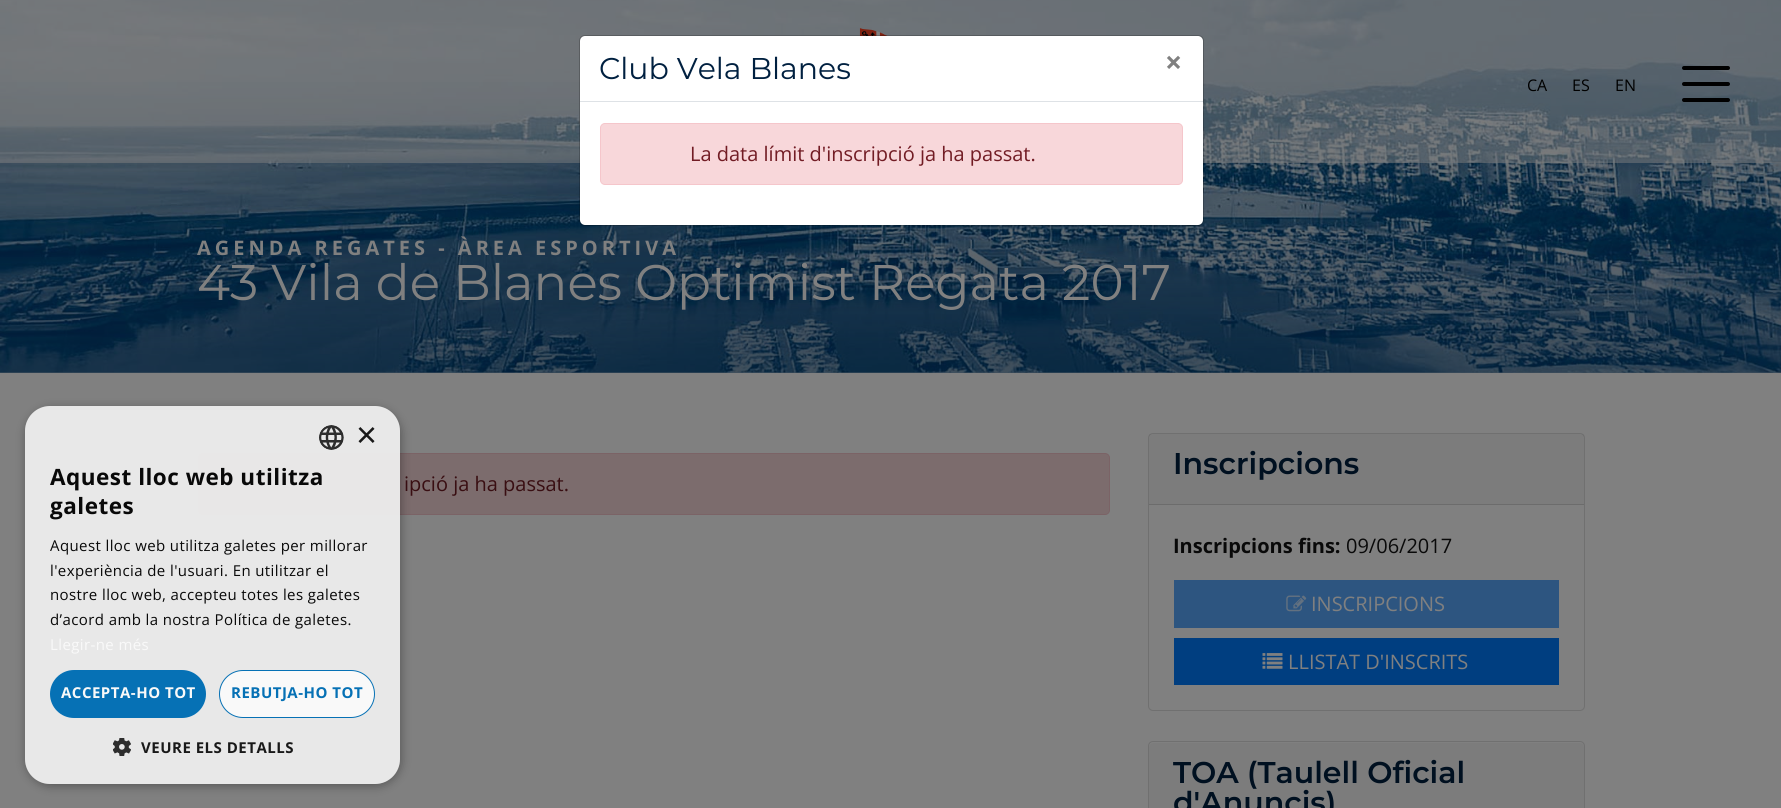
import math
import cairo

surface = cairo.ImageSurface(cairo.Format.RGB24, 1781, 808)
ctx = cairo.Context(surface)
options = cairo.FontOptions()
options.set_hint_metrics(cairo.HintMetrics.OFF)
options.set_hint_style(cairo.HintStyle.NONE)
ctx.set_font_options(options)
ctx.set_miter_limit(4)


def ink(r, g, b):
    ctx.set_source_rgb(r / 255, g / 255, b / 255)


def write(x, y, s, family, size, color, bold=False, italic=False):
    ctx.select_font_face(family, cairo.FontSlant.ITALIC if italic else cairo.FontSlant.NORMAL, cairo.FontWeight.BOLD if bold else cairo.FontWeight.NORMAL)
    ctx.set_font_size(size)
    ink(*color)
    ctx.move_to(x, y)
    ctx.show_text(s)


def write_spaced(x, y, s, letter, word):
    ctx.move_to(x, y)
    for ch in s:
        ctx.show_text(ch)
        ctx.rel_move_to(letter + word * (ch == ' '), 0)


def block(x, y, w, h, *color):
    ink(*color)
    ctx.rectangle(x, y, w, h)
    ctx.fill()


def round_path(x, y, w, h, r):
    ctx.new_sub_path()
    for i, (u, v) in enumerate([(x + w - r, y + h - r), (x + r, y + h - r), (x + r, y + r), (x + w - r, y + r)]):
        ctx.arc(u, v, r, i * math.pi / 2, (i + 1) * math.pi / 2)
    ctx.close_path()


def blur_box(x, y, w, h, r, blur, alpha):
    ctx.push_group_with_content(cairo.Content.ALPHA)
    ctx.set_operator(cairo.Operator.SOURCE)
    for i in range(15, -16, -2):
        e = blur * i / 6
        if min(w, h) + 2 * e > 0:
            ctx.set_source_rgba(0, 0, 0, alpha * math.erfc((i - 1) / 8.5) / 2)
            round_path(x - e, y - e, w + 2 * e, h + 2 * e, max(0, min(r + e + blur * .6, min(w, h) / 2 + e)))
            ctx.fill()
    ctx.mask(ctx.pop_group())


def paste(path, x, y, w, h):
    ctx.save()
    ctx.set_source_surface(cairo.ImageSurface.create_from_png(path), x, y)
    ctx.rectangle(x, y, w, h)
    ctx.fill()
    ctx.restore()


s1 = dict(family="Montserrat", size=30, color=(0, 32, 64))
s2 = dict(family="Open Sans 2", size=30, color=(128, 128, 128), bold=True)
s3 = dict(family="Open Sans", size=20, color=(114, 28, 36))
s4 = dict(family="Open Sans", size=16, color=(0, 0, 0))
s5 = dict(family="Montserrat", size=50, color=(128, 128, 128))
s6 = dict(family="Open Sans", size=20, color=(57, 14, 18))
s7 = dict(family="Montserrat SemiBold", size=30, color=(0, 16, 32))
s8 = dict(family="Open Sans", size=20, color=(9, 9, 9), bold=True)
s9 = dict(family="Open Sans", size=20, color=(9, 9, 9))
s10 = dict(family="Open Sans", size=20, color=(128, 128, 128))
s11 = dict(family="Liberation Sans", size=36, color=(25, 25, 25))

ink(128, 128, 128)
ctx.paint()
paste("pic2.png", 0, 0, 1781, 373)
gradient = cairo.LinearGradient(891, 60, 891, 373)
gradient.add_color_stop_rgba(0, 0.008, 0.122, 0.227, 0)
gradient.add_color_stop_rgba(0.01, 0.008, 0.122, 0.227, 0)
gradient.add_color_stop_rgba(0.6, 0.008, 0.122, 0.227, 0.25)
gradient.add_color_stop_rgba(0.93, 0.008, 0.122, 0.227, 0.5)
gradient.add_color_stop_rgba(1, 0.008, 0.122, 0.227, 0.5)
ctx.set_source(gradient)
ctx.rectangle(0, 82, 1781, 291)
ctx.fill()
ctx.set_source_rgba(0.502, 0.502, 0.502, 0.5)
ctx.rectangle(0, 0, 1781, 163)
ctx.fill()
ink(255, 255, 255)
round_path(580, 36, 623, 189, 5)
ctx.fill()
paste("pic1.png", 859, 28, 29, 8)
round_path(579.5, 35.5, 624, 190, 5.5)
ctx.set_source_rgba(0, 0, 0, 0.2)
ctx.set_line_width(1)
ctx.stroke()
block(580, 101, 623, 1, 222, 226, 230)
write(599, 79, "Club Vela Blanes", **s1)
write(1165, 73, "×", **s2)
ink(248, 215, 218)
round_path(600.5, 123.5, 582, 61, 4.5)
ctx.fill_preserve()
ink(245, 198, 203)
ctx.stroke()
write(690, 161, "La data límit d'inscripció ja ha passat.", **s3)
write(1527, 91, "CA", **s4)
write(1572, 91, "ES", **s4)
write(1615, 91, "EN", **s4)
ctx.new_path()
ctx.move_to(1684, 68)
ctx.line_to(1728, 68)
ctx.move_to(1684, 84)
ctx.line_to(1728, 84)
ctx.move_to(1684, 100)
ctx.line_to(1728, 100)
ctx.set_line_width(4)
ctx.set_line_cap(cairo.LineCap.ROUND)
ctx.stroke()
ctx.select_font_face("Open Sans", cairo.FontSlant.NORMAL, cairo.FontWeight.BOLD)
ctx.set_font_size(20)
ink(128, 128, 128)
write_spaced(197, 255, "AGENDA REGATES - ÀREA ESPORTIVA", 4, 0)
write(197, 300, "43 Vila de Blanes Optimist Regata 2017", **s5)
ink(124, 108, 109)
round_path(198.5, 453.5, 911, 61, 4.5)
ctx.fill_preserve()
ink(123, 99, 102)
ctx.set_line_width(1)
ctx.set_line_cap(cairo.LineCap.BUTT)
ctx.stroke()
write(404, 491, "ipció ja ha passat.", **s6)
round_path(1148.5, 433.5, 436, 277, 4.5)
ink(112, 112, 112)
ctx.stroke()
ctx.set_source_rgba(0, 0, 0, 0.03)
ctx.rectangle(1149, 434, 435, 70)
ctx.fill()
block(1149, 504, 435, 1, 108, 108, 108)
write(1173, 474, "Inscripcions", **s7)
write(1173, 553, "Inscripcions fins:", **s8)
write(1346, 553, "09/06/2017", **s9)
block(1174, 580, 385, 48, 45, 85, 128)
paste("pic3.png", 1286, 595, 21, 17)
write(1311, 611, "INSCRIPCIONS", **s10)
block(1174, 638, 385, 47, 0, 62, 128)
paste("pic4.png", 1262, 653, 21, 16)
write(1288, 669, "LLISTAT D'INSCRITS", **s10)
round_path(1148.5, 741.5, 436, 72, 4.5)
ink(112, 112, 112)
ctx.stroke()
ink(124, 124, 124)
ctx.new_path()
ctx.move_to(1153, 743)
ctx.line_to(1580, 743)
ctx.curve_to(1582, 743, 1584, 745, 1584, 747)
ctx.line_to(1584, 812)
ctx.line_to(1149, 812)
ctx.line_to(1149, 747)
ctx.curve_to(1149, 745, 1151, 743, 1153, 743)
ctx.close_path()
ctx.fill()
write(1173, 783, "TOA (Taulell Oficial", **s7)
write(1173, 813, "d'Anuncis)", **s7)
ctx.save()
ctx.set_fill_rule(cairo.FillRule.EVEN_ODD)
ctx.new_path()
ctx.move_to(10, 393)
ctx.line_to(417, 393)
ctx.line_to(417, 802)
ctx.line_to(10, 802)
ctx.close_path()
ctx.move_to(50, 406)
ctx.line_to(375, 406)
ctx.curve_to(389, 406, 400, 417, 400, 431)
ctx.line_to(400, 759)
ctx.curve_to(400, 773, 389, 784, 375, 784)
ctx.line_to(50, 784)
ctx.curve_to(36, 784, 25, 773, 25, 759)
ctx.line_to(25, 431)
ctx.curve_to(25, 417, 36, 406, 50, 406)
ctx.close_path()
ctx.clip()
ink(0, 0, 0)
blur_box(26, 409, 375, 377, 25, 5, 0.33)
ctx.restore()
ctx.set_source_rgba(0.933, 0.933, 0.933, 0.95)
round_path(25, 406, 375, 378, 25)
ctx.fill()
paste("pic5.png", 319, 425, 25, 25)
write(356, 447, "×", **s11)
ctx.select_font_face("Open Sans", cairo.FontSlant.NORMAL, cairo.FontWeight.BOLD)
ctx.set_font_size(22.5)
ink(9, 9, 9)
write_spaced(50, 485, "Aquest lloc web utilitza", 0.5, 0)
write_spaced(50, 514, "galetes", 0.5, 0)
ctx.select_font_face("Open Sans")
ctx.set_font_size(15)
write_spaced(50, 551, "Aquest lloc web utilitza galetes per millorar", 0.4, 0)
write_spaced(50, 576, "l'experiència de l'usuari. En utilitzar el", 0.4, 0)
write_spaced(50, 600, "nostre lloc web, accepteu totes les galetes", 0.4, 0)
write_spaced(50, 625, "d’acord amb la nostra Política de galetes.", 0.4, 0)
ink(249, 249, 249)
write_spaced(50, 650, "Llegir-ne més", 0.4, 0)
ink(6, 113, 181)
round_path(50, 670, 156, 48, 24)
ctx.fill()
ctx.select_font_face("Open Sans 2", cairo.FontSlant.NORMAL, cairo.FontWeight.BOLD)
ink(249, 249, 249)
write_spaced(61, 698, "ACCEPTA-HO TOT", 0.5, 0)
round_path(219.5, 670.5, 155, 47, 23.5)
ctx.fill_preserve()
ink(6, 113, 181)
ctx.stroke()
write_spaced(231, 698, "REBUTJA-HO TOT", 0.5, 0)
paste("pic6.png", 113, 738, 18, 18)
ink(25, 25, 25)
write_spaced(141, 753, "VEURE ELS DETALLS", 0.5, 0)
surface.write_to_png("screenshot.png")
